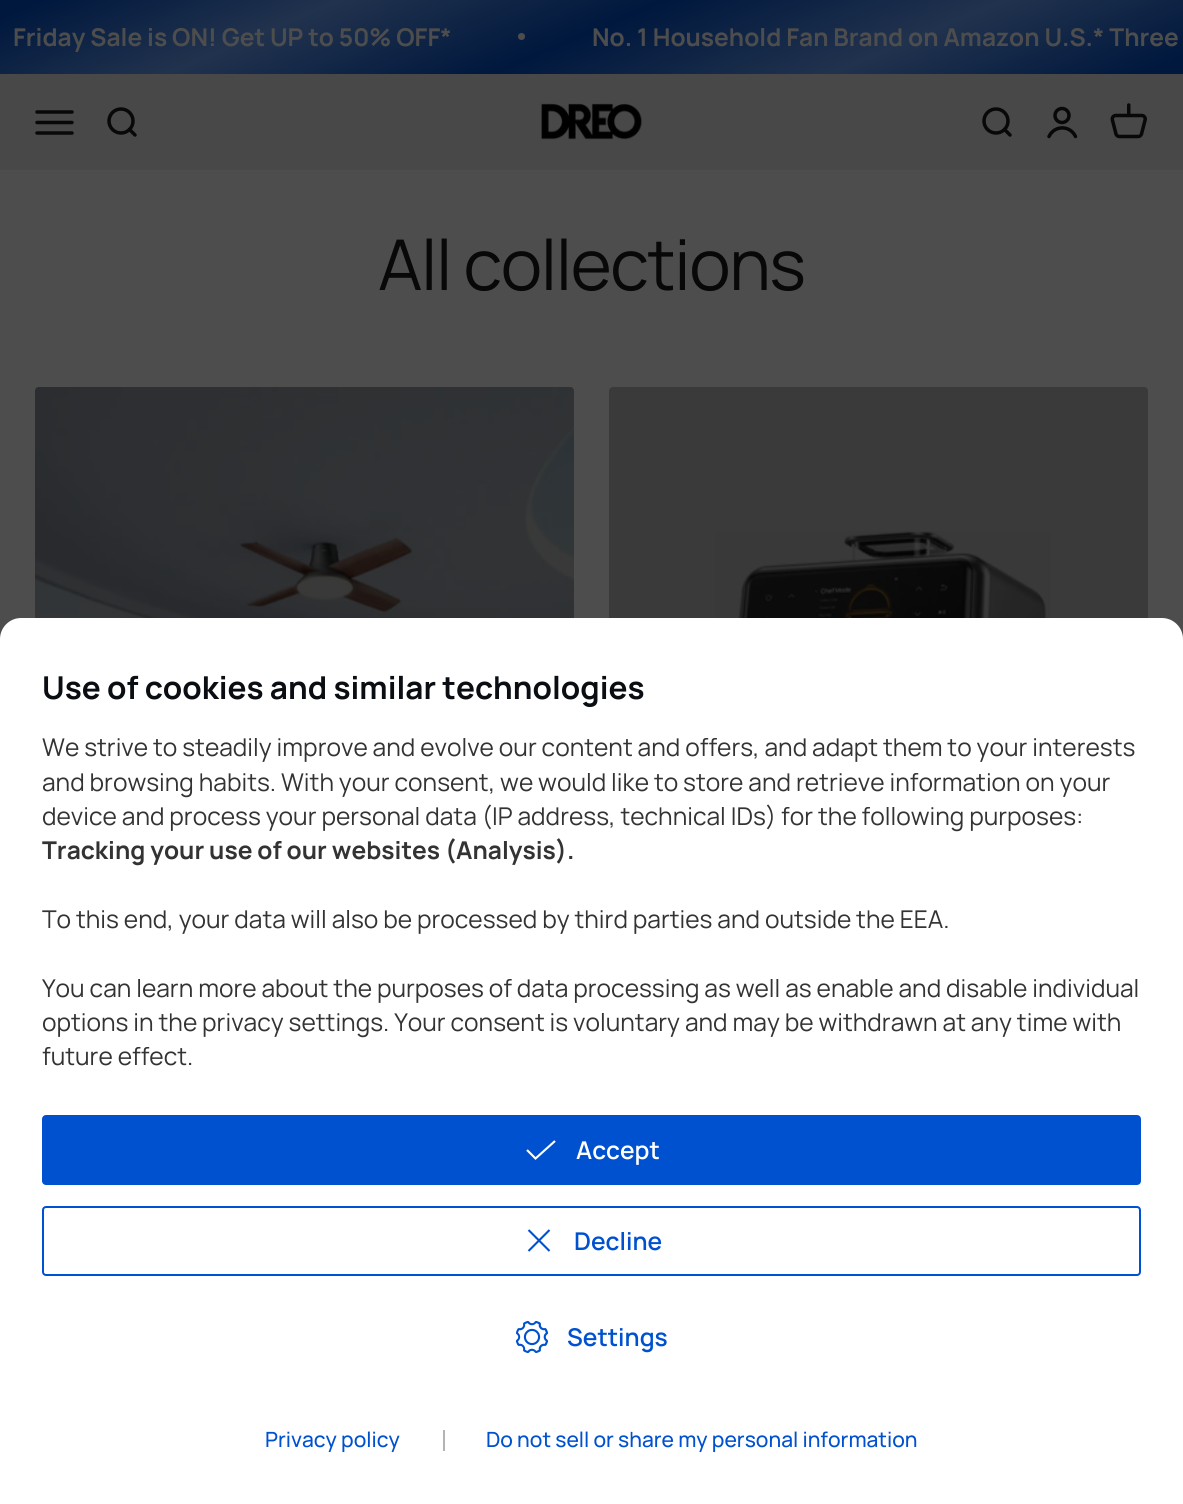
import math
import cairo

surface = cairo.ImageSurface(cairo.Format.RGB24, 1183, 1504)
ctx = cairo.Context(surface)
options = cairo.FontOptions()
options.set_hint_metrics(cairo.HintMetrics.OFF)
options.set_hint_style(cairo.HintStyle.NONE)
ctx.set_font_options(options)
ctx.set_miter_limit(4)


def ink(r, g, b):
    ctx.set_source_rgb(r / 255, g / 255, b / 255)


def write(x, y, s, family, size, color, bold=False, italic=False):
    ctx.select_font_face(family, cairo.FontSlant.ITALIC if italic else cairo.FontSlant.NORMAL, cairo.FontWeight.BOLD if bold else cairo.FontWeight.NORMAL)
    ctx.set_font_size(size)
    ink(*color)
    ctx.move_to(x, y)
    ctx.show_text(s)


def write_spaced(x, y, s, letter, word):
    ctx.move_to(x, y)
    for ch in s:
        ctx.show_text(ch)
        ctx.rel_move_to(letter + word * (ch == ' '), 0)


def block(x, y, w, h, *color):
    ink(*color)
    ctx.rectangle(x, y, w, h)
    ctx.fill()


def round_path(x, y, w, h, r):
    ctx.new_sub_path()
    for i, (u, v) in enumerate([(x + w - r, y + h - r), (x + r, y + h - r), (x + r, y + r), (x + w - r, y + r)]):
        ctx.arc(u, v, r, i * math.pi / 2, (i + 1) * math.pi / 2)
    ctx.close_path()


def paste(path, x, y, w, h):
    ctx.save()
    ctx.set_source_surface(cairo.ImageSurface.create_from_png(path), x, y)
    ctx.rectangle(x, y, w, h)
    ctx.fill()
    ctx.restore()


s1 = dict(family="Manrope", size=24.5, color=(77, 77, 77), bold=True)
s2 = dict(family="Manrope", size=31.5, color=(10, 13, 17), bold=True)
s3 = dict(family="Manrope", size=24.5, color=(51, 51, 51))
s4 = dict(family="Manrope", size=24.5, color=(51, 51, 51), bold=True)
s5 = dict(family="Manrope SemiBold", size=24.5, color=(255, 255, 255))
s6 = dict(family="Manrope SemiBold", size=24.5, color=(0, 81, 207))
s7 = dict(family="Manrope Medium", size=21, color=(0, 81, 207))

ink(77, 77, 77)
ctx.paint()
gradient = cairo.LinearGradient(488, -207, 695, 281)
gradient.add_color_stop_rgba(0.03, 0, 0.094, 0.243, 1)
gradient.add_color_stop_rgba(0.25, 0.129, 0.196, 0.302, 1)
gradient.add_color_stop_rgba(0.49, 0, 0.094, 0.243, 1)
gradient.add_color_stop_rgba(0.74, 0.129, 0.196, 0.302, 1)
gradient.add_color_stop_rgba(0.97, 0, 0.094, 0.243, 1)
ctx.set_source(gradient)
ctx.rectangle(0, 0, 1183, 74)
ctx.fill()
write(13, 46, "Friday Sale is ON! Get UP to 50% OFF*", **s1)
ctx.new_path()
ctx.arc(521.5, 36.5, 3.5, 0, 2 * math.pi)
ctx.fill()
write(592, 46, "No. 1 Household Fan Brand on Amazon U.S.* Three", **s1)
block(0, 74, 1183, 96, 72, 72, 72)
ctx.new_path()
ctx.move_to(37, 112)
ctx.line_to(72, 112)
ctx.move_to(37, 122.5)
ctx.line_to(72, 122.5)
ctx.move_to(37, 133)
ctx.line_to(72, 133)
ink(8, 8, 8)
ctx.set_line_width(3.5)
ctx.set_line_cap(cairo.LineCap.ROUND)
ctx.stroke()
ctx.arc(121, 121, 12, 0, 2 * math.pi)
ctx.set_line_cap(cairo.LineCap.BUTT)
ctx.stroke()
ctx.new_path()
ctx.move_to(129.5, 129.5)
ctx.line_to(135, 135)
ctx.set_line_cap(cairo.LineCap.ROUND)
ctx.set_line_join(cairo.LineJoin.ROUND)
ctx.stroke()
paste("pic1.png", 541, 103, 101, 37)
ctx.arc(996, 121, 12, 0, 2 * math.pi)
ctx.set_line_cap(cairo.LineCap.BUTT)
ctx.set_line_join(cairo.LineJoin.MITER)
ctx.stroke()
ctx.new_path()
ctx.move_to(1004.5, 129.5)
ctx.line_to(1010, 135)
ctx.set_line_cap(cairo.LineCap.ROUND)
ctx.set_line_join(cairo.LineJoin.ROUND)
ctx.stroke()
ctx.arc(1062, 115.5, 7, 0, 2 * math.pi)
ctx.set_line_cap(cairo.LineCap.BUTT)
ctx.set_line_join(cairo.LineJoin.MITER)
ctx.stroke()
ctx.new_path()
ctx.move_to(1049, 136.5)
ctx.curve_to(1054.5, 125, 1070, 125, 1075.5, 136.5)
ctx.set_line_cap(cairo.LineCap.ROUND)
ctx.stroke()
paste("pic2.png", 1110, 103, 37, 36)
ctx.select_font_face("Manrope")
ctx.set_font_size(70)
write_spaced(378, 290, "All collections", -1.4, 0)
paste("pic3.png", 35, 387, 539, 231)
ctx.set_source_rgba(0.031, 0.031, 0.031, 0.28)
round_path(35, 387, 539, 646, 4)
ctx.fill()
paste("pic4.png", 715, 531, 336, 87)
round_path(609, 387, 539, 646, 4)
ctx.fill()
ink(255, 255, 255)
ctx.new_path()
ctx.move_to(21, 618)
ctx.line_to(1162, 618)
ctx.curve_to(1173.5, 618, 1183, 627.5, 1183, 639)
ctx.line_to(1183, 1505)
ctx.line_to(0, 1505)
ctx.line_to(0, 639)
ctx.curve_to(0, 627.5, 9.5, 618, 21, 618)
ctx.close_path()
ctx.fill()
write(42, 699, "Use of cookies and similar technologies", **s2)
write(42, 756, "We strive to steadily improve and evolve our content and offers, and adapt them to your interests", **s3)
write(42, 791, "and browsing habits. With your consent, we would like to store and retrieve information on your", **s3)
write(42, 825, "device and process your personal data (IP address, technical IDs) for the following purposes:", **s3)
write(42, 859, "Tracking your use of our websites (Analysis).", **s4)
write(42, 928, "To this end, your data will also be processed by third parties and outside the EEA.", **s3)
write(42, 997, "You can learn more about the purposes of data processing as well as enable and disable individual", **s3)
write(42, 1031, "options in the privacy settings. Your consent is voluntary and may be withdrawn at any time with", **s3)
write(42, 1065, "future effect.", **s3)
ink(0, 81, 207)
round_path(43, 1116, 1097, 68, 3)
ctx.fill_preserve()
ctx.set_line_width(2)
ctx.set_line_cap(cairo.LineCap.BUTT)
ctx.stroke()
ctx.new_path()
ctx.move_to(527, 1150)
ctx.line_to(535.5, 1158.5)
ctx.line_to(555, 1141)
ink(255, 255, 255)
ctx.set_line_width(2.1)
ctx.stroke()
write(576, 1159, "Accept", **s5)
round_path(43, 1207, 1097, 68, 3)
ink(0, 81, 207)
ctx.set_line_width(2)
ctx.stroke()
ctx.new_path()
ctx.move_to(528.5, 1230)
ctx.line_to(549.5, 1251)
ctx.move_to(528.5, 1251)
ctx.line_to(549.5, 1230)
ctx.set_line_width(2.1)
ctx.stroke()
write(574, 1250, "Decline", **s6)
paste("pic5.png", 515, 1320, 34, 34)
write(567, 1346, "Settings", **s6)
write(265, 1447, "Privacy policy", **s7)
block(443, 1430, 2, 21, 179, 179, 179)
write(486, 1447, "Do not sell or share my personal information", **s7)
surface.write_to_png("screenshot.png")
